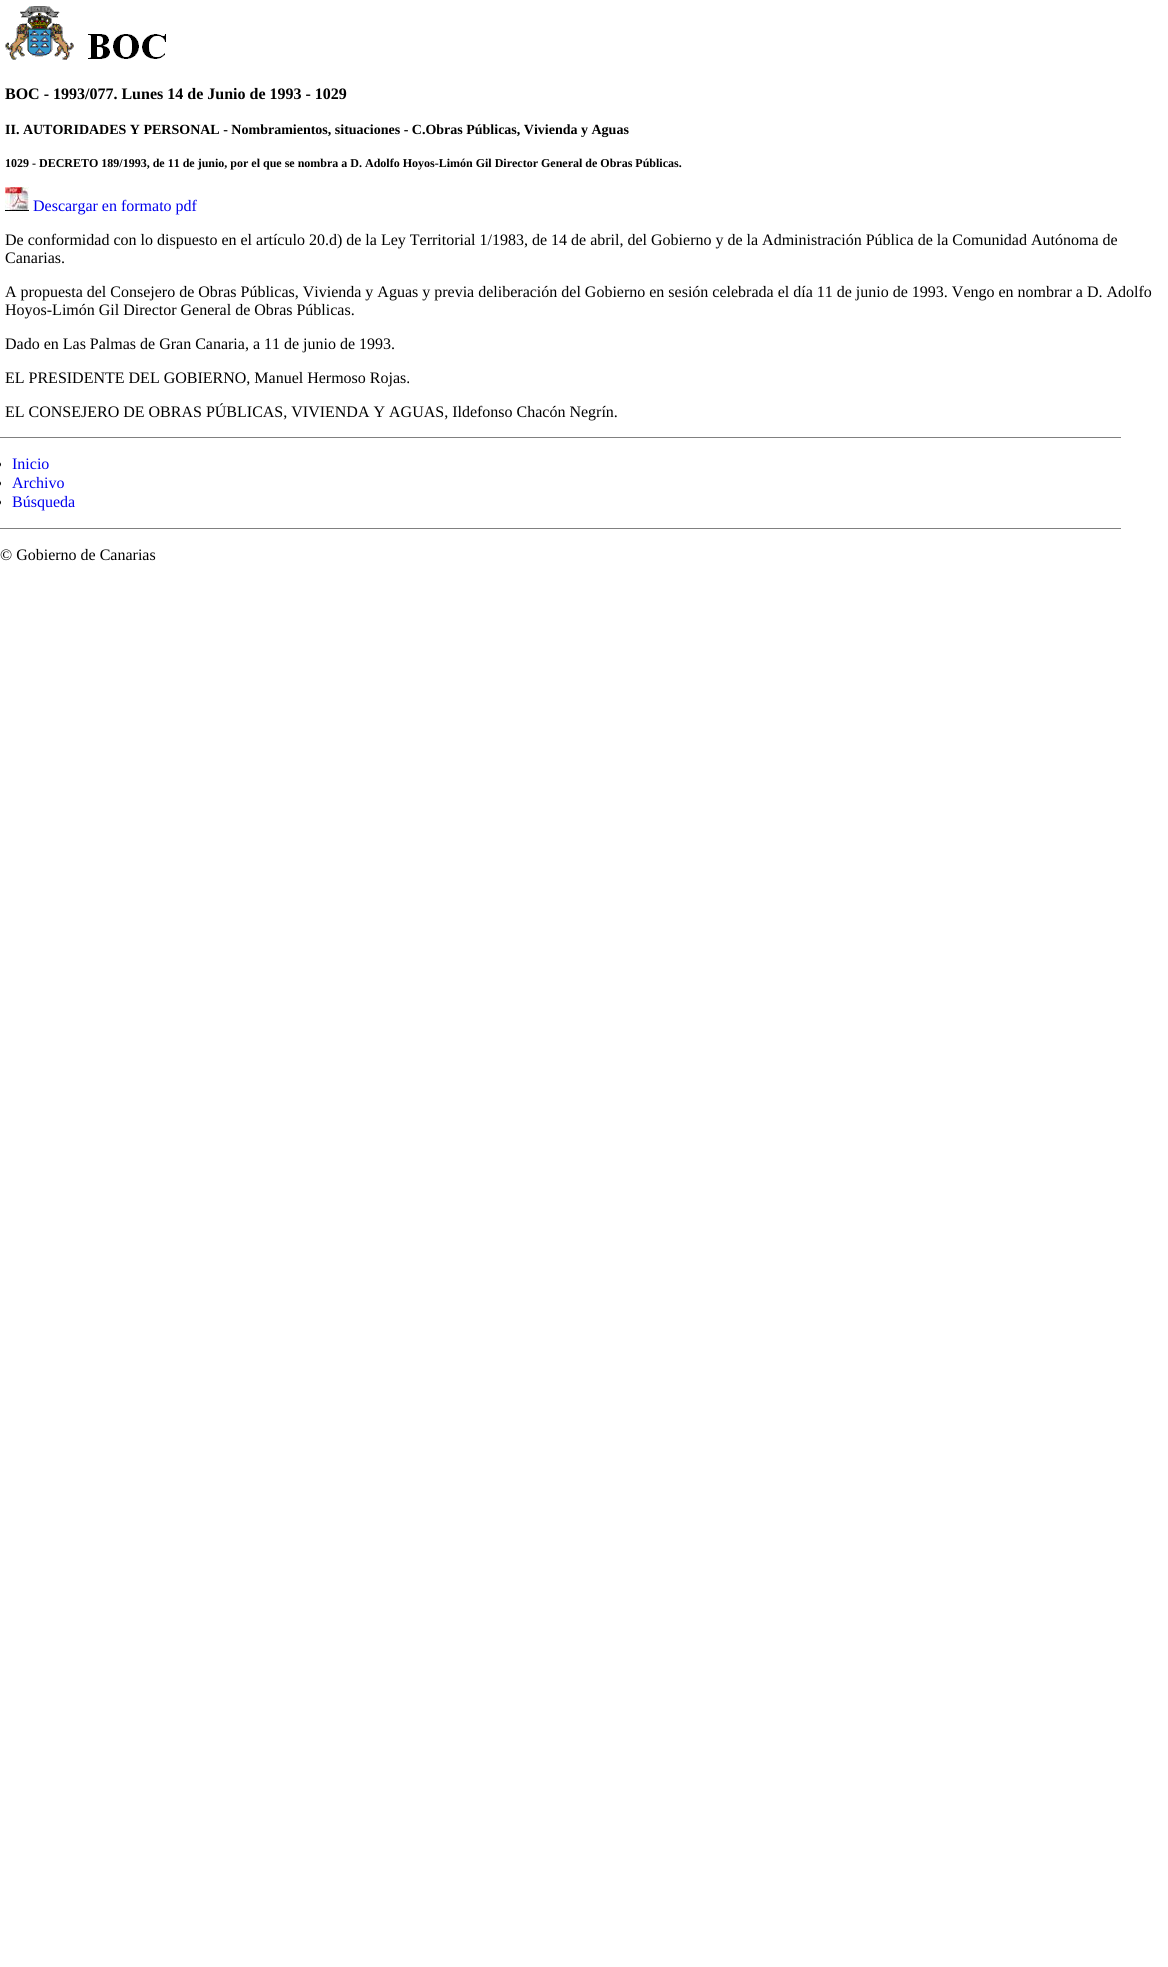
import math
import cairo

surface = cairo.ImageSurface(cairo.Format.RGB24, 1168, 1967)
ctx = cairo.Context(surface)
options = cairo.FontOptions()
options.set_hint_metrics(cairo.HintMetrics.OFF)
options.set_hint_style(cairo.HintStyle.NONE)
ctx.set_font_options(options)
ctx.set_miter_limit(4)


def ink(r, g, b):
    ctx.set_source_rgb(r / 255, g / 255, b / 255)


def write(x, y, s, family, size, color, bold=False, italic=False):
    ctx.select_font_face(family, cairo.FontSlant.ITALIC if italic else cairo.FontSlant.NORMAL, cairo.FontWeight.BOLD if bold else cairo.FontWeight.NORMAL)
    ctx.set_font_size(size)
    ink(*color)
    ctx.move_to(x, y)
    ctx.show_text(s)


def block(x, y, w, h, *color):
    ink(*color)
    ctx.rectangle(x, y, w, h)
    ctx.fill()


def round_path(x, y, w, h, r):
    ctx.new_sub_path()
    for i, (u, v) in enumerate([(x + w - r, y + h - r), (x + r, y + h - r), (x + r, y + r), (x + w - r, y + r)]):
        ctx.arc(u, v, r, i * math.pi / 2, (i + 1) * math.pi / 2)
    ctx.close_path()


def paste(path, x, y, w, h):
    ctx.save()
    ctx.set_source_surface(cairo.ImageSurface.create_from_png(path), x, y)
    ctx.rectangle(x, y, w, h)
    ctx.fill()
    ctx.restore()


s1 = dict(family="Liberation Serif", size=16, color=(0, 0, 0), bold=True)
s2 = dict(family="Liberation Serif", size=14, color=(0, 0, 0), bold=True)
s3 = dict(family="Liberation Serif", size=12, color=(0, 0, 0), bold=True)
s4 = dict(family="Liberation Serif", size=16, color=(0, 0, 238))
s5 = dict(family="Liberation Serif", size=16, color=(0, 0, 0))

ink(255, 255, 255)
ctx.paint()
paste("pic1.png", 5, 6, 69, 54)
paste("pic2.png", 88, 34, 78, 25)
write(5, 99, "BOC - 1993/077. Lunes 14 de Junio de 1993 - 1029", **s1)
write(5, 134, "II. AUTORIDADES Y PERSONAL - Nombramientos, situaciones - C.Obras Públicas, Vivienda y Aguas", **s2)
write(5, 167, "1029 - DECRETO 189/1993, de 11 de junio, por el que se nombra a D. Adolfo Hoyos-Limón Gil Director General de Obras Públicas.", **s3)
paste("pic3.png", 5, 187, 24, 24)
write(33, 211, "Descargar en formato pdf", **s4)
write(5, 245, "De conformidad con lo dispuesto en el artículo 20.d) de la Ley Territorial 1/1983, de 14 de abril, del Gobierno y de la Administración Pública de la Comunidad Autónoma de", **s5)
write(5, 263, "Canarias.", **s5)
write(5, 297, "A propuesta del Consejero de Obras Públicas, Vivienda y Aguas y previa deliberación del Gobierno en sesión celebrada el día 11 de junio de 1993. Vengo en nombrar a D. Adolfo", **s5)
write(5, 315, "Hoyos-Limón Gil Director General de Obras Públicas.", **s5)
write(5, 349, "Dado en Las Palmas de Gran Canaria, a 11 de junio de 1993.", **s5)
write(5, 383, "EL PRESIDENTE DEL GOBIERNO, Manuel Hermoso Rojas.", **s5)
write(5, 417, "EL CONSEJERO DE OBRAS PÚBLICAS, VIVIENDA Y AGUAS, Ildefonso Chacón Negrín.", **s5)
block(0, 437, 1121, 1, 128, 128, 128)
ink(0, 0, 0)
round_path(-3, 462, 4, 5, 2.5)
ctx.fill()
write(12, 469, "Inicio", **s4)
ink(0, 0, 0)
round_path(-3, 481, 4, 5, 2.5)
ctx.fill()
write(12, 488, "Archivo", **s4)
ink(0, 0, 0)
round_path(-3, 500, 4, 5, 2.5)
ctx.fill()
write(12, 507, "Búsqueda", **s4)
block(0, 528, 1121, 1, 128, 128, 128)
write(0, 560, "© Gobierno de Canarias", **s5)
surface.write_to_png("screenshot.png")
